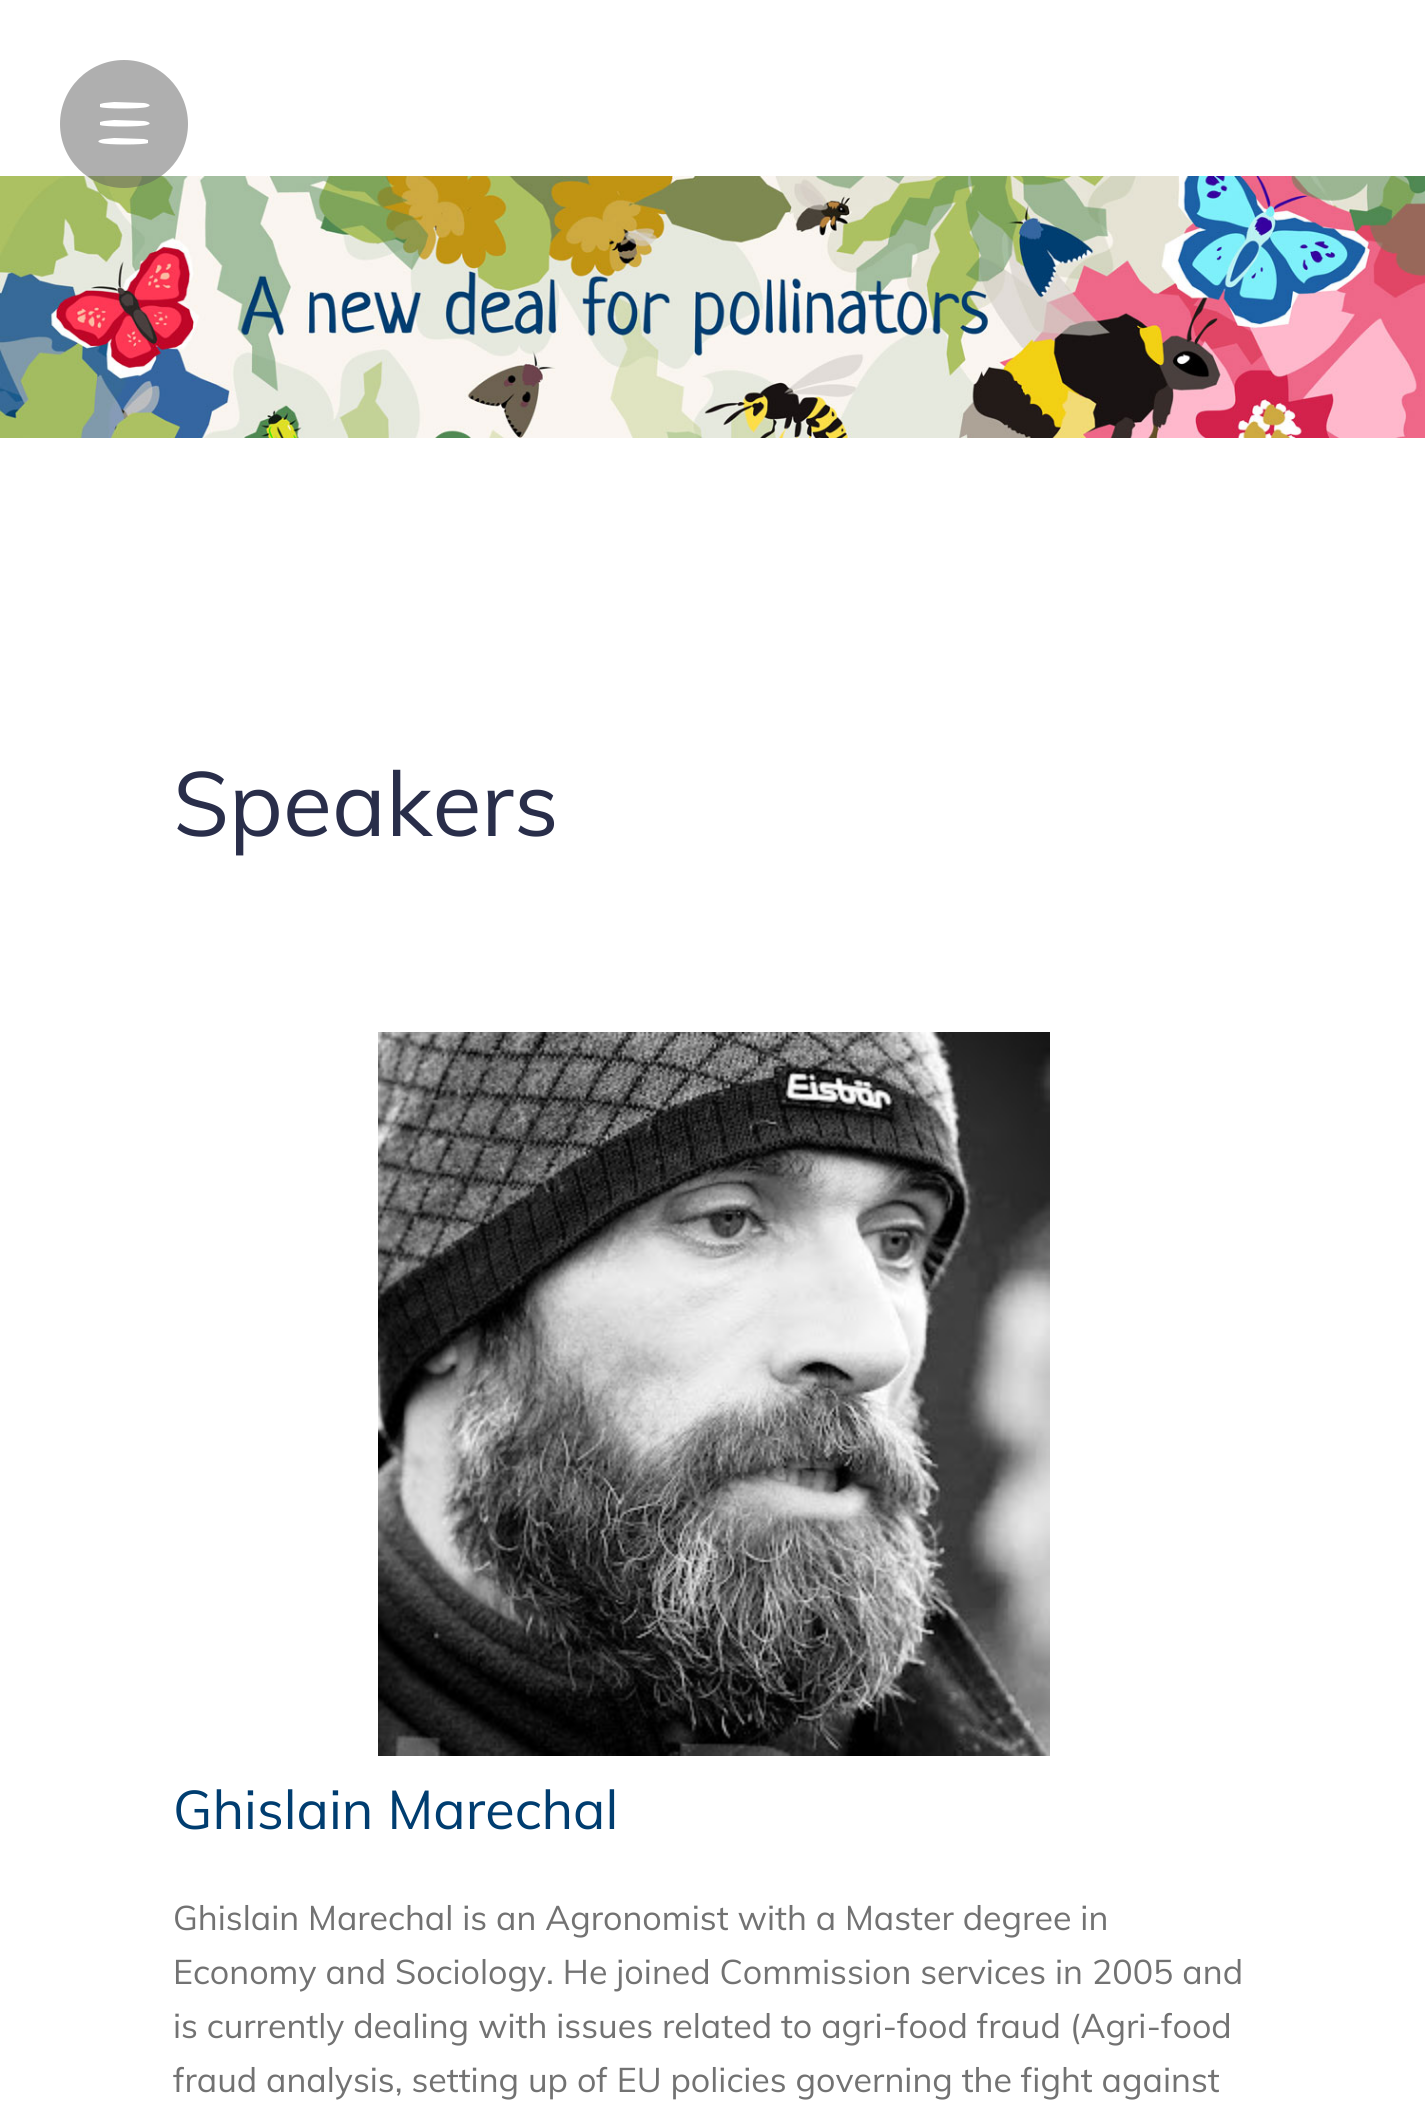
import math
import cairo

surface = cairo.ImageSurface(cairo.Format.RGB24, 1425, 2109)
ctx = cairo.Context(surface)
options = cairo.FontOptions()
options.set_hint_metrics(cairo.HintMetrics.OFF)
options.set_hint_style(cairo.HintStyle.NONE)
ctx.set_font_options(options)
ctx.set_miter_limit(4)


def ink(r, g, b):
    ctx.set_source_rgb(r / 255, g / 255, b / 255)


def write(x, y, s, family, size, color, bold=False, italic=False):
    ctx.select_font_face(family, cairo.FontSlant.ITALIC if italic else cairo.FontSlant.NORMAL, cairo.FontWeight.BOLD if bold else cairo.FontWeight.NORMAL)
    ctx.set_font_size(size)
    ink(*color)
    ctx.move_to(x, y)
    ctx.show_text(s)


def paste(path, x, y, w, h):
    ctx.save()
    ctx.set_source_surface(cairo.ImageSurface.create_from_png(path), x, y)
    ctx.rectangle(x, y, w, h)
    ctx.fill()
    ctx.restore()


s1 = dict(family="Muli", size=90, color=(41, 46, 74))
s2 = dict(family="Muli", size=54, color=(0, 61, 112))
s3 = dict(family="Muli", size=34, color=(114, 114, 114))

ink(255, 255, 255)
ctx.paint()
paste("pic1.png", 0, 176, 1425, 262)
ctx.set_source_rgba(0.376, 0.376, 0.376, 0.5)
ctx.arc(124, 124, 64, 0, 2 * math.pi)
ctx.fill()
ink(255, 255, 255)
ctx.new_path()
ctx.move_to(114, 102)
ctx.line_to(144, 103)
ctx.curve_to(145, 103, 154, 105, 147, 107)
ctx.curve_to(141, 109, 104, 109, 100, 107)
ctx.line_to(100, 104)
ctx.line_to(104, 103)
ctx.close_path()
ctx.move_to(114, 120)
ctx.line_to(144, 121)
ctx.curve_to(145, 121, 154, 123, 147, 125)
ctx.curve_to(141, 127, 104, 127, 100, 125)
ctx.line_to(100, 122)
ctx.line_to(104, 121)
ctx.close_path()
ctx.move_to(114, 138)
ctx.line_to(144, 139)
ctx.line_to(148, 140)
ctx.line_to(148, 143)
ctx.curve_to(144, 145, 107, 145, 101, 143)
ctx.curve_to(94, 141, 103, 139, 104, 139)
ctx.close_path()
ctx.fill()
write(173, 836, "Speakers", **s1)
paste("pic2.png", 378, 1032, 672, 724)
write(173, 1829, "Ghislain Marechal", **s2)
write(173, 1930, "Ghislain Marechal is an Agronomist with a Master degree in", **s3)
write(173, 1984, "Economy and Sociology. He joined Commission services in 2005 and", **s3)
write(173, 2038, "is currently dealing with issues related to agri-food fraud (Agri-food", **s3)
write(173, 2092, "fraud analysis, setting up of EU policies governing the fight against", **s3)
surface.write_to_png("screenshot.png")
